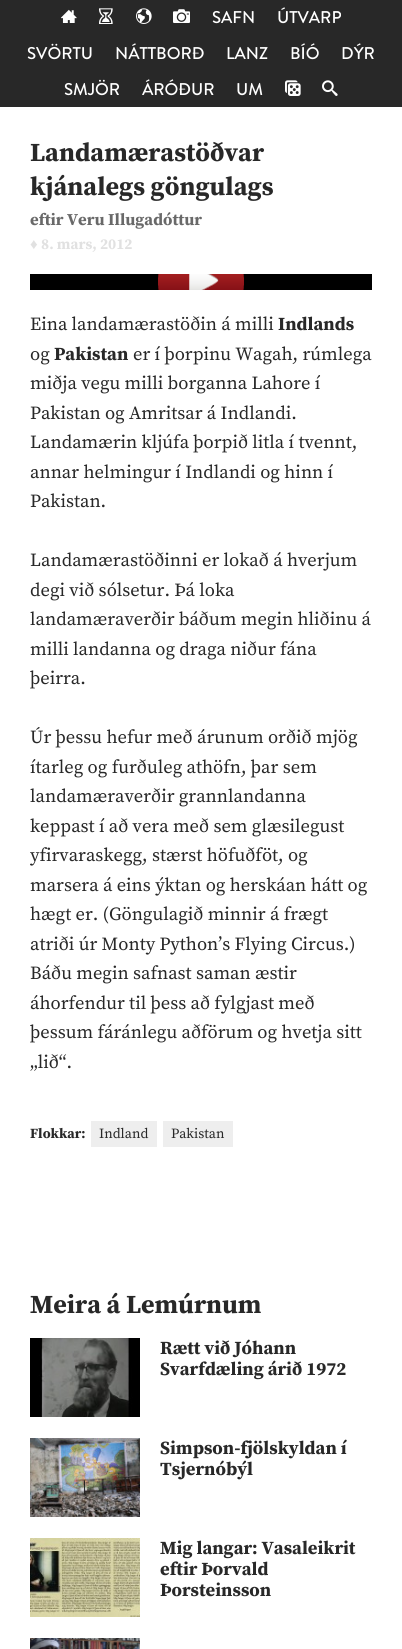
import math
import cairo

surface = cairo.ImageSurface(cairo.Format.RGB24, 402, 1649)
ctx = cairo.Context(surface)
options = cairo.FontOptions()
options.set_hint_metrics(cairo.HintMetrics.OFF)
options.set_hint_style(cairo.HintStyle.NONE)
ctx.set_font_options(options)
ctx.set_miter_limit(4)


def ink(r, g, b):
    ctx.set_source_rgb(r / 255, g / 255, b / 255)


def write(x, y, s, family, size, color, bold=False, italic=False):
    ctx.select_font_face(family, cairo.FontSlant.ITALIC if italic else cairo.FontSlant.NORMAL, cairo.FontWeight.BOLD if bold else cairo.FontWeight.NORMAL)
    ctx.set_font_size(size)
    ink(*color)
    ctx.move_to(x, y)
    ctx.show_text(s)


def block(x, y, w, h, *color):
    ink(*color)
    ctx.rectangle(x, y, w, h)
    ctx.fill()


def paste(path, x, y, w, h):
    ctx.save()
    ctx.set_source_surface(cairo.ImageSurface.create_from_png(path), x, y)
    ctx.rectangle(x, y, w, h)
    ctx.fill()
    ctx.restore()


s1 = dict(family="Brandon Grotesque Medium", size=17, color=(255, 255, 255))
s2 = dict(family="Source Serif Pro", size=26, color=(40, 40, 40), bold=True)
s3 = dict(family="Source Serif Pro", size=16.6, color=(105, 105, 105), bold=True)
s4 = dict(family="Liberation Serif", size=15, color=(225, 225, 225), bold=True)
s5 = dict(family="Source Serif Pro", size=15, color=(225, 225, 225), bold=True)
s6 = dict(family="Source Serif Pro", size=18.5, color=(40, 40, 40))
s7 = dict(family="Source Serif Pro", size=18.5, color=(40, 40, 40), bold=True)
s8 = dict(family="Source Serif Pro", size=14, color=(40, 40, 40), bold=True)
s9 = dict(family="Source Serif Pro", size=14, color=(40, 40, 40))

ink(255, 255, 255)
ctx.paint()
block(0, 0, 402, 107, 40, 40, 40)
paste("pic1.png", 61, 9, 16, 14)
paste("pic2.png", 99, 8, 14, 16)
paste("pic3.png", 136, 8, 16, 16)
paste("pic4.png", 173, 9, 17, 14)
write(212, 23, "SAFN", **s1)
write(277, 23, "ÚTVARP", **s1)
write(27, 59, "SVÖRTU", **s1)
write(115, 59, "NÁTTBORÐ", **s1)
write(226, 59, "LANZ", **s1)
write(290, 59, "BÍÓ", **s1)
write(341, 59, "DÝR", **s1)
write(64, 95, "SMJÖR", **s1)
write(142, 95, "ÁRÓÐUR", **s1)
write(236, 95, "UM", **s1)
paste("pic5.png", 285, 80, 16, 16)
paste("pic6.png", 322, 80, 16, 16)
write(30, 161, "Landamærastöðvar", **s2)
write(30, 195, "kjánalegs göngulags", **s2)
write(30, 225, "eftir Veru Illugadóttur", **s3)
write(30, 249, "♦", **s4)
write(41, 249, "8. mars, 2012", **s5)
block(30, 274, 342, 16, 0, 0, 0)
paste("pic7.png", 158, 274, 86, 16)
write(30, 330, "Eina landamærastöðin á milli", **s6)
write(278, 330, "Indlands", **s7)
write(30, 360, "og", **s6)
write(54, 360, "Pakistan", **s7)
write(133, 360, "er í þorpinu Wagah, rúmlega", **s6)
write(30, 389, "miðja vegu milli borganna Lahore í", **s6)
write(30, 419, "Pakistan og Amritsar á Indlandi.", **s6)
write(30, 448, "Landamærin kljúfa þorpið litla í tvennt,", **s6)
write(30, 478, "annar helmingur í Indlandi og hinn í", **s6)
write(30, 507, "Pakistan.", **s6)
write(30, 566, "Landamærastöðinni er lokað á hverjum", **s6)
write(30, 596, "degi við sólsetur. Þá loka", **s6)
write(30, 625, "landamæraverðir báðum megin hliðinu á", **s6)
write(30, 655, "milli landanna og draga niður fána", **s6)
write(30, 684, "þeirra.", **s6)
write(30, 743, "Úr þessu hefur með árunum orðið mjög", **s6)
write(30, 773, "ítarleg og furðuleg athöfn, þar sem", **s6)
write(30, 802, "landamæraverðir grannlandanna", **s6)
write(30, 832, "keppast í að vera með sem glæsilegust", **s6)
write(30, 861, "yfirvaraskegg, stærst höfuðföt, og", **s6)
write(30, 891, "marsera á eins ýktan og herskáan hátt og", **s6)
write(30, 920, "hægt er. (Göngulagið minnir á frægt", **s6)
write(30, 950, "atriði úr Monty Python’s Flying Circus.)", **s6)
write(30, 979, "Báðu megin safnast saman æstir", **s6)
write(30, 1009, "áhorfendur til þess að fylgjast með", **s6)
write(30, 1038, "þessum fáránlegu aðförum og hvetja sitt", **s6)
write(30, 1068, "„lið“.", **s6)
write(30, 1138, "Flokkar:", **s8)
block(91, 1121, 66, 26, 238, 238, 238)
write(99, 1138, "Indland", **s9)
block(163, 1121, 70, 26, 238, 238, 238)
write(171, 1138, "Pakistan", **s9)
write(30, 1313, "Meira á Lemúrnum", **s2)
paste("pic8.png", 30, 1338, 110, 79)
write(160, 1354, "Rætt við Jóhann", **s7)
write(160, 1375, "Svarfdæling árið 1972", **s7)
paste("pic9.png", 30, 1438, 110, 79)
write(160, 1454, "Simpson-fjölskyldan í", **s7)
write(160, 1475, "Tsjernóbýl", **s7)
paste("pic10.png", 30, 1538, 110, 79)
write(160, 1554, "Mig langar: Vasaleikrit", **s7)
write(160, 1575, "eftir Þorvald", **s7)
write(160, 1596, "Þorsteinsson", **s7)
paste("pic11.png", 30, 1638, 110, 11)
surface.write_to_png("screenshot.png")
